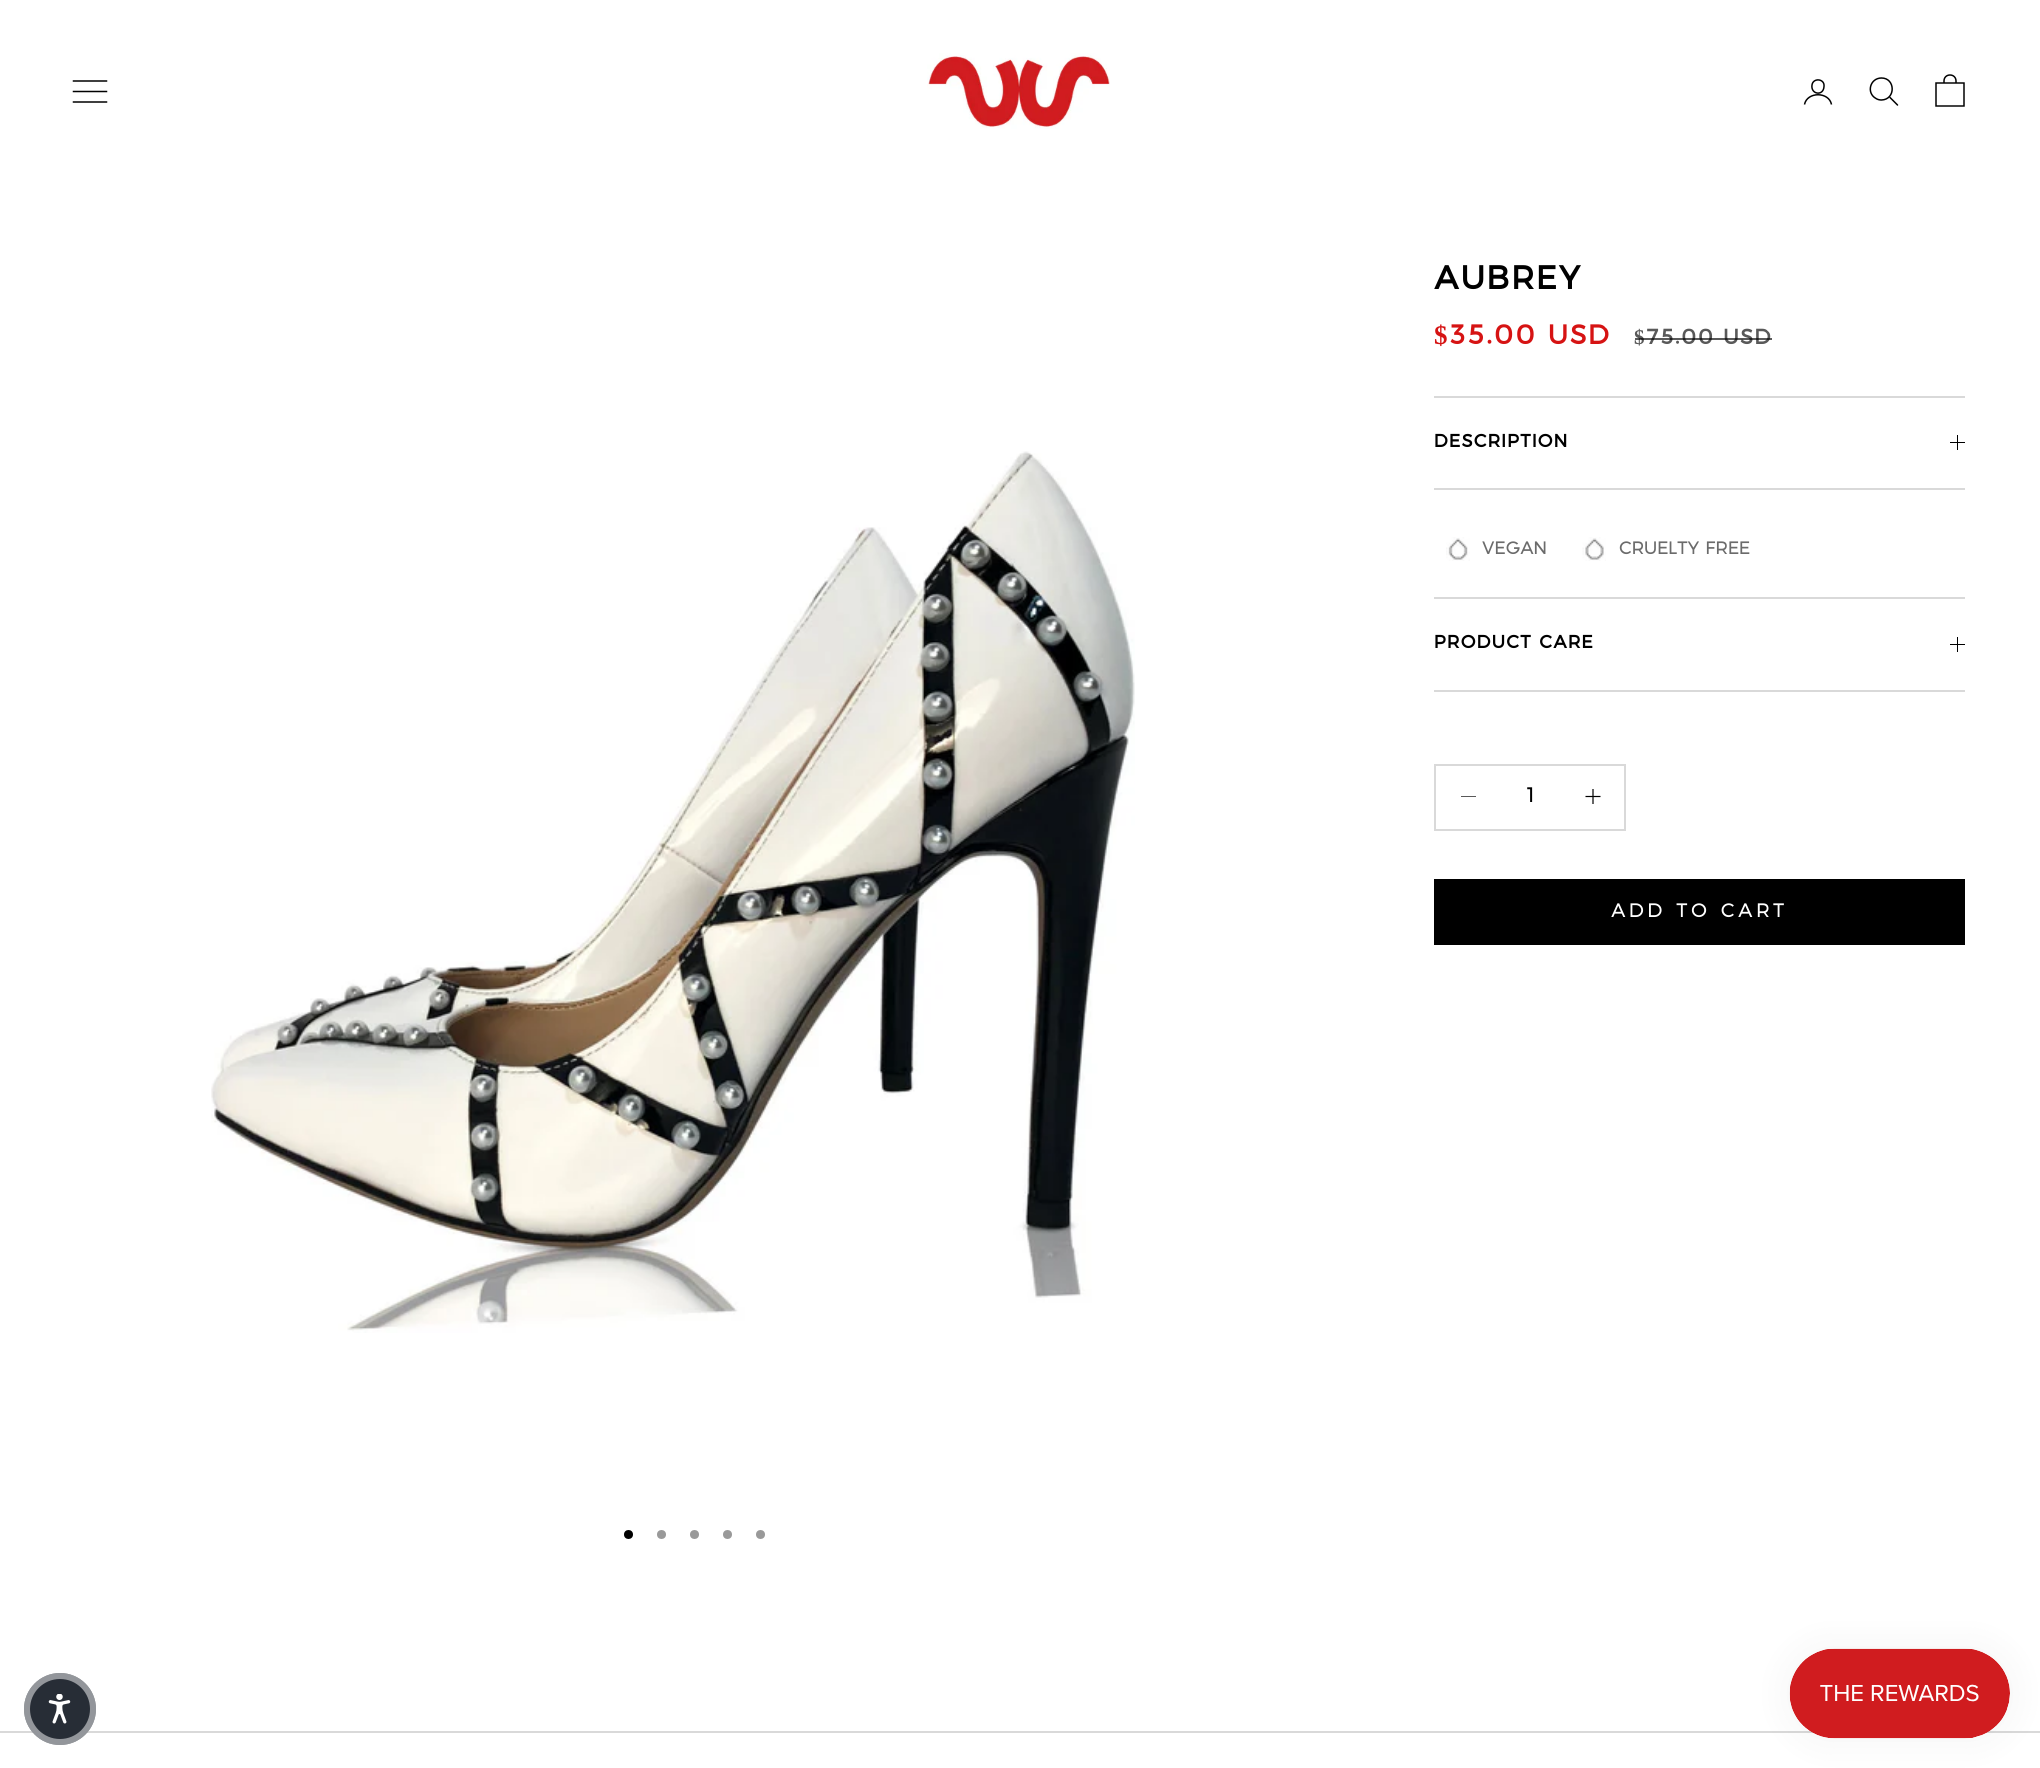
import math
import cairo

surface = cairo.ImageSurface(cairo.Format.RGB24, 2040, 1768)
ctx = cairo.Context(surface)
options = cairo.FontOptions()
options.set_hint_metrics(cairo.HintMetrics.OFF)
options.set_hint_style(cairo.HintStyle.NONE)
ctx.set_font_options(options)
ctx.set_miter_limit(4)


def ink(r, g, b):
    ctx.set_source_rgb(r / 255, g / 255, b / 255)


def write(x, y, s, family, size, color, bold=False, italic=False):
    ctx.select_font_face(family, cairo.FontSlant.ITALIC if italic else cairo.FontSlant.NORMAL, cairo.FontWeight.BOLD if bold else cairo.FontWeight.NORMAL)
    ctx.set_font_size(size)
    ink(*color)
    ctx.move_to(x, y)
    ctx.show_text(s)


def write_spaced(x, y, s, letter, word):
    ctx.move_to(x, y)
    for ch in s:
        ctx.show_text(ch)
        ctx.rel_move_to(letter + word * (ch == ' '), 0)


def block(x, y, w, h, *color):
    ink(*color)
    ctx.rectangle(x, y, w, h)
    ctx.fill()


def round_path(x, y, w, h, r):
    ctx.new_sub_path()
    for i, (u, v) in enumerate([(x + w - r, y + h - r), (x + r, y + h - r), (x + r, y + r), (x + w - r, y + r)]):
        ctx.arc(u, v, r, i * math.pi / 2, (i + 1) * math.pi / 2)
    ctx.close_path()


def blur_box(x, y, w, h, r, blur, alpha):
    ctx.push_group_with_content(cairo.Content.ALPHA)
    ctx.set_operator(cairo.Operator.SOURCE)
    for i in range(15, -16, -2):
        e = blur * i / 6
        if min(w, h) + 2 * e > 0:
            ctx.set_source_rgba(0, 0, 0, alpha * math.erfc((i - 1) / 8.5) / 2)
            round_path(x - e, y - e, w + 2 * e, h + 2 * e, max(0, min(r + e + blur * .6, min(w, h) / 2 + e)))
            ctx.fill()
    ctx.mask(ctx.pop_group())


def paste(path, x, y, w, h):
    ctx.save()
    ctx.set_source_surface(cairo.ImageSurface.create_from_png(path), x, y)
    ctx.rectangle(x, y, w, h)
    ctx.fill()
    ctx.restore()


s1 = dict(family="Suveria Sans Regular", size=18, color=(107, 107, 107))
s2 = dict(family="Suveria Sans Regular", size=21, color=(0, 0, 0))

ink(255, 255, 255)
ctx.paint()
ctx.new_path()
ctx.move_to(73.5, 102)
ctx.line_to(106.5, 102)
ctx.move_to(73.5, 91.5)
ctx.line_to(106.5, 91.5)
ctx.move_to(73.5, 81)
ctx.line_to(106.5, 81)
ink(0, 0, 0)
ctx.set_line_width(1.5)
ctx.set_line_cap(cairo.LineCap.SQUARE)
ctx.stroke()
paste("pic1.png", 927, 53, 183, 76)
ctx.new_path()
ctx.move_to(1824, 86.5)
ctx.curve_to(1823.5, 96.5, 1810.5, 94.5, 1812, 85)
ctx.curve_to(1813, 77.5, 1825, 78.5, 1824, 86.5)
ctx.close_path()
ctx.set_line_cap(cairo.LineCap.ROUND)
ctx.set_line_join(cairo.LineJoin.ROUND)
ctx.stroke()
ctx.new_path()
ctx.move_to(1804.5, 104.5)
ctx.curve_to(1807, 91.5, 1829, 91.5, 1831.5, 104.5)
ctx.set_line_cap(cairo.LineCap.BUTT)
ctx.set_line_join(cairo.LineJoin.MITER)
ctx.stroke()
ctx.new_path()
ctx.move_to(1881.5, 78)
ctx.curve_to(1870, 78, 1866, 93, 1876, 98.5)
ctx.curve_to(1877.5, 99.5, 1879.5, 100, 1881.5, 100)
ctx.curve_to(1896, 99.5, 1895.5, 78, 1881.5, 78)
ctx.close_path()
ctx.stroke()
ctx.new_path()
ctx.move_to(1890, 97.5)
ctx.line_to(1897.5, 105)
ctx.set_line_cap(cairo.LineCap.ROUND)
ctx.stroke()
ctx.new_path()
ctx.move_to(1964, 106)
ctx.line_to(1964, 83)
ctx.line_to(1936, 83)
ctx.line_to(1936, 106)
ctx.close_path()
ctx.move_to(1944, 82.5)
ctx.line_to(1944, 81)
ctx.curve_to(1944, 77.5, 1946.5, 75, 1950, 75)
ctx.curve_to(1953.5, 75, 1956, 77.5, 1956, 81)
ctx.line_to(1956, 82.5)
ctx.set_line_cap(cairo.LineCap.BUTT)
ctx.stroke()
paste("pic2.png", 211, 451, 924, 882)
ctx.arc(628.5, 1534.5, 4.5, 0, 2 * math.pi)
ctx.fill()
ink(153, 153, 153)
ctx.arc(661.5, 1534.5, 4.5, 0, 2 * math.pi)
ctx.fill()
ctx.arc(694.5, 1534.5, 4.5, 0, 2 * math.pi)
ctx.fill()
ctx.arc(727.5, 1534.5, 4.5, 0, 2 * math.pi)
ctx.fill()
ctx.arc(760.5, 1534.5, 4.5, 0, 2 * math.pi)
ctx.fill()
ctx.select_font_face("Suveria Sans Regular", cairo.FontSlant.NORMAL, cairo.FontWeight.BOLD)
ctx.set_font_size(32.75)
ink(0, 0, 0)
write_spaced(1434, 289, "AUBREY", 2.25, 0)
ctx.select_font_face("Liberation Serif", cairo.FontSlant.NORMAL, cairo.FontWeight.BOLD)
ctx.set_font_size(27)
ink(214, 19, 19)
write_spaced(1434, 344, "$", 1.9, 0)
ctx.select_font_face("Suveria Sans Regular", cairo.FontSlant.NORMAL, cairo.FontWeight.BOLD)
write_spaced(1449, 344, "35.00 USD", 1.9, 0)
ctx.select_font_face("Liberation Serif", cairo.FontSlant.NORMAL, cairo.FontWeight.BOLD)
ctx.set_font_size(21)
ink(89, 89, 89)
write_spaced(1634, 344, "$", 1.5, 0)
ctx.select_font_face("Suveria Sans Regular", cairo.FontSlant.NORMAL, cairo.FontWeight.BOLD)
write_spaced(1646, 344, "75.00 USD", 1.5, 0)
ctx.set_source_rgba(0, 0, 0, 0.65)
ctx.rectangle(1635, 338, 137, 2)
ctx.fill()
block(1434, 396, 531, 2, 217, 217, 217)
block(1434, 488, 531, 2, 217, 217, 217)
ctx.set_font_size(18)
ink(0, 0, 0)
write_spaced(1434, 447, "DESCRIPTION", 1.25, 0)
block(1957, 435, 1, 15, 0, 0, 0)
block(1950, 442, 15, 1, 0, 0, 0)
paste("pic3.png", 1446, 537, 24, 24)
write(1482, 554, "VEGAN", **s1)
paste("pic4.png", 1582, 537, 24, 24)
write(1619, 554, "CRUELTY FREE", **s1)
block(1434, 597, 531, 2, 217, 217, 217)
block(1434, 690, 531, 2, 217, 217, 217)
ctx.select_font_face("Suveria Sans Regular", cairo.FontSlant.NORMAL, cairo.FontWeight.BOLD)
ink(0, 0, 0)
write_spaced(1434, 648, "PRODUCT CARE", 1.25, 0)
block(1957, 637, 1, 15, 0, 0, 0)
block(1950, 644, 15, 1, 0, 0, 0)
ctx.rectangle(1435, 765, 190, 65)
ink(217, 217, 217)
ctx.set_line_width(2)
ctx.stroke()
block(1461, 796, 15, 1, 89, 89, 89)
write(1526, 802, "1", **s2)
ctx.new_path()
ctx.move_to(1593, 789)
ctx.line_to(1593, 804)
ctx.move_to(1585.5, 796.5)
ctx.line_to(1600.5, 796.5)
ctx.set_line_width(1.2)
ctx.stroke()
ctx.rectangle(1435, 880, 529, 64)
ctx.fill_preserve()
ctx.set_line_width(2)
ctx.stroke()
ctx.set_font_size(19.5)
ink(255, 255, 255)
write_spaced(1611, 917, "ADD TO CART", 3.5, 0)
block(0, 1731, 2040, 2, 217, 217, 217)
ink(39, 45, 54)
ctx.new_path()
ctx.arc(60, 1709, 36, 0, 2 * math.pi)
ctx.fill()
ctx.arc(60, 1709, 33, 0, 2 * math.pi)
ctx.set_source_rgba(1, 1, 1, 0.5)
ctx.set_line_width(6)
ctx.stroke()
paste("pic5.png", 48, 1694, 23, 30)
ink(0, 0, 0)
blur_box(1790, 1649, 220, 90, 45, 19, 0.05)
paste("pic6.png", 1789, 1648, 221, 91)
surface.write_to_png("screenshot.png")
